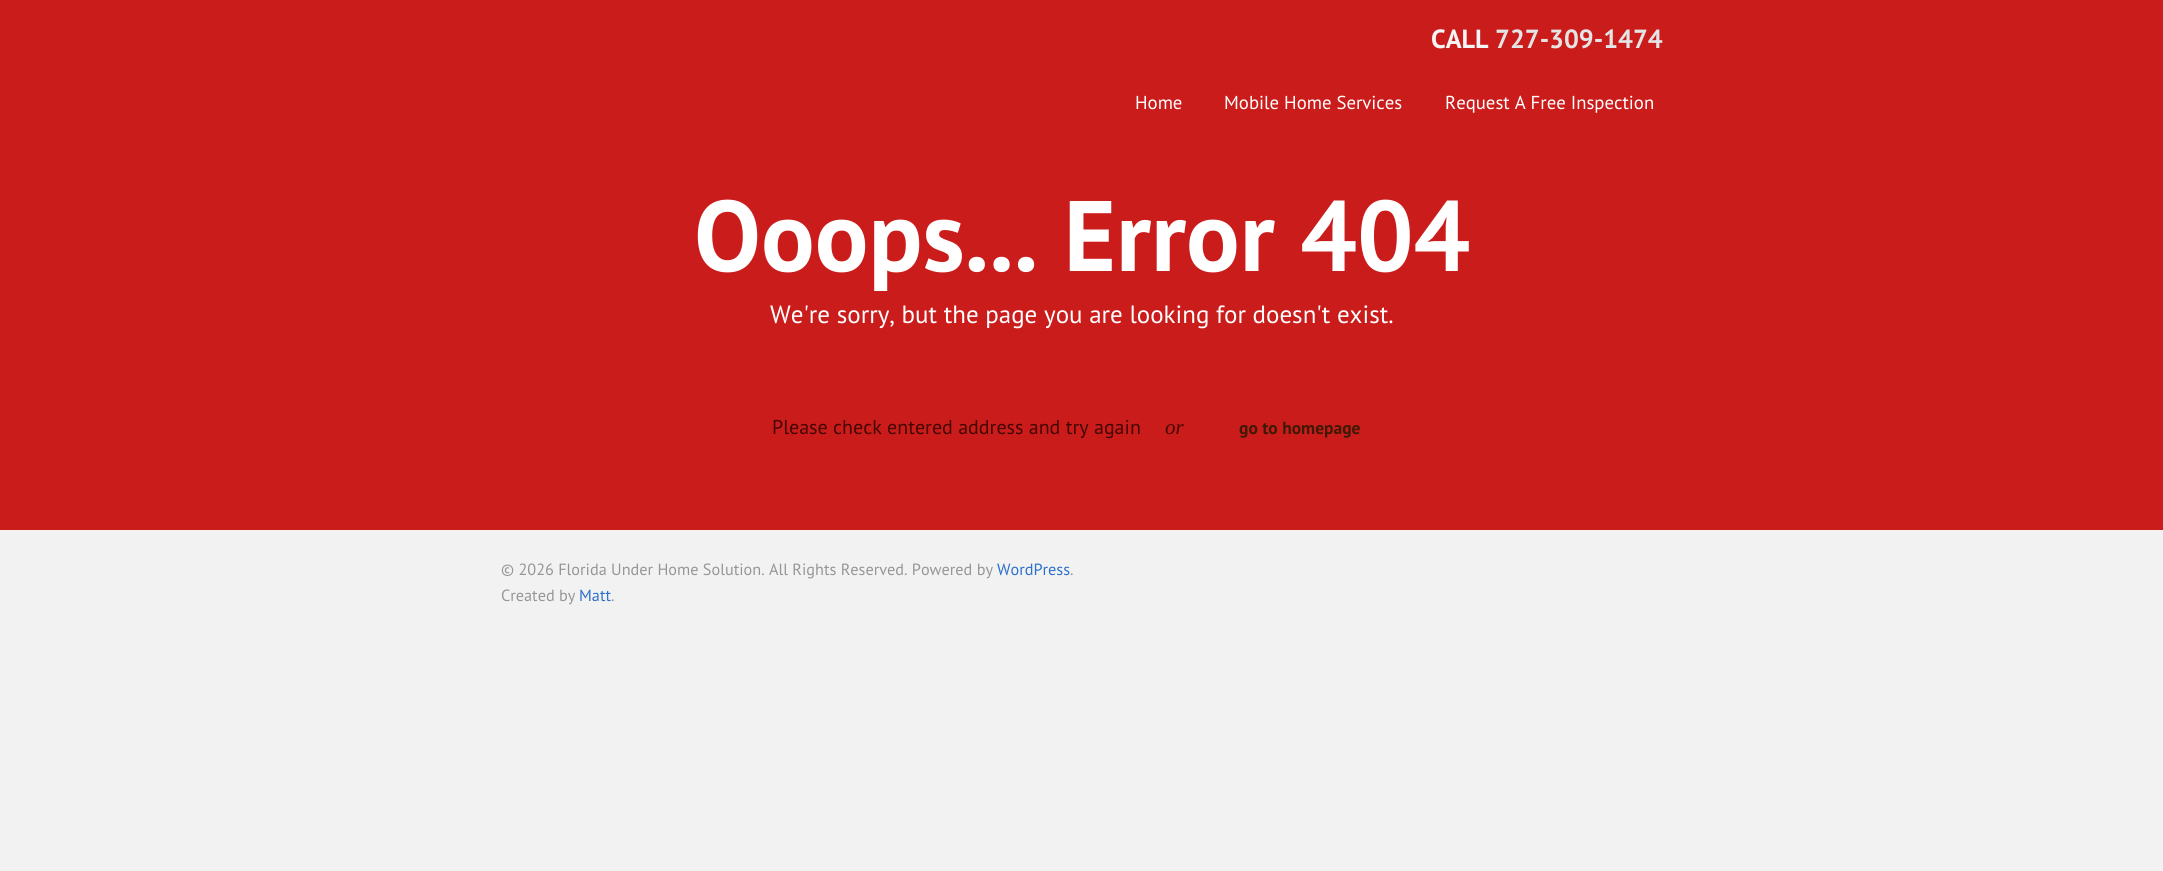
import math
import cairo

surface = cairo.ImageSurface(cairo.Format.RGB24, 2163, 871)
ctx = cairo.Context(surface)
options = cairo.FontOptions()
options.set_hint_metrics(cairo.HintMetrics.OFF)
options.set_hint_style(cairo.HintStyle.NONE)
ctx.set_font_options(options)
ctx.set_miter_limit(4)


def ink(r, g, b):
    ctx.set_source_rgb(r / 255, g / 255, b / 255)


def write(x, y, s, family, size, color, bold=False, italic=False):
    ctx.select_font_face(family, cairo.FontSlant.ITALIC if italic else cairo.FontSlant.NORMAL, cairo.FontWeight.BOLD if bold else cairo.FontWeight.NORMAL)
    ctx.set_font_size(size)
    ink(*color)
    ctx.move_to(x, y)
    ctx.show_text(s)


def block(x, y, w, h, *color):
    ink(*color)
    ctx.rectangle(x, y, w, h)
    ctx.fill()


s1 = dict(family="PT Sans", size=26.25, color=(245, 245, 245), bold=True)
s2 = dict(family="PT Sans", size=26.25, color=(228, 228, 228), bold=True)
s3 = dict(family="PT Sans", size=18.75, color=(255, 255, 255))
s4 = dict(family="PT Sans", size=100, color=(255, 255, 255), bold=True)
s5 = dict(family="PT Sans", size=25, color=(255, 255, 255))
s6 = dict(family="PT Sans", size=20, color=(68, 5, 0))
s7 = dict(family="Liberation Serif", size=21, color=(68, 5, 0), italic=True)
s8 = dict(family="PT Sans", size=17.5, color=(63, 25, 3), bold=True)
s9 = dict(family="PT Sans", size=16.25, color=(150, 150, 150))
s10 = dict(family="PT Sans", size=16.25, color=(45, 112, 202))

ink(242, 242, 242)
ctx.paint()
block(0, 0, 2163, 530, 203, 28, 28)
write(1431, 48, "CALL", **s1)
write(1495, 48, "727-309-1474", **s2)
write(1135, 109, "Home", **s3)
write(1224, 109, "Mobile Home Services", **s3)
write(1445, 109, "Request A Free Inspection", **s3)
write(694, 271, "Ooops... Error 404", **s4)
write(770, 323, "We're sorry, but the page you are looking for doesn't exist.", **s5)
write(772, 434, "Please check entered address and try again", **s6)
write(1165, 434, "or", **s7)
write(1239, 434, "go to homepage", **s8)
write(501, 575, "© 2026 Florida Under Home Solution. All Rights Reserved. Powered by", **s9)
write(997, 575, "WordPress", **s10)
write(1070, 575, ".", **s9)
write(501, 601, "Created by", **s9)
write(579, 601, "Matt", **s10)
write(611, 601, ".", **s9)
surface.write_to_png("screenshot.png")
